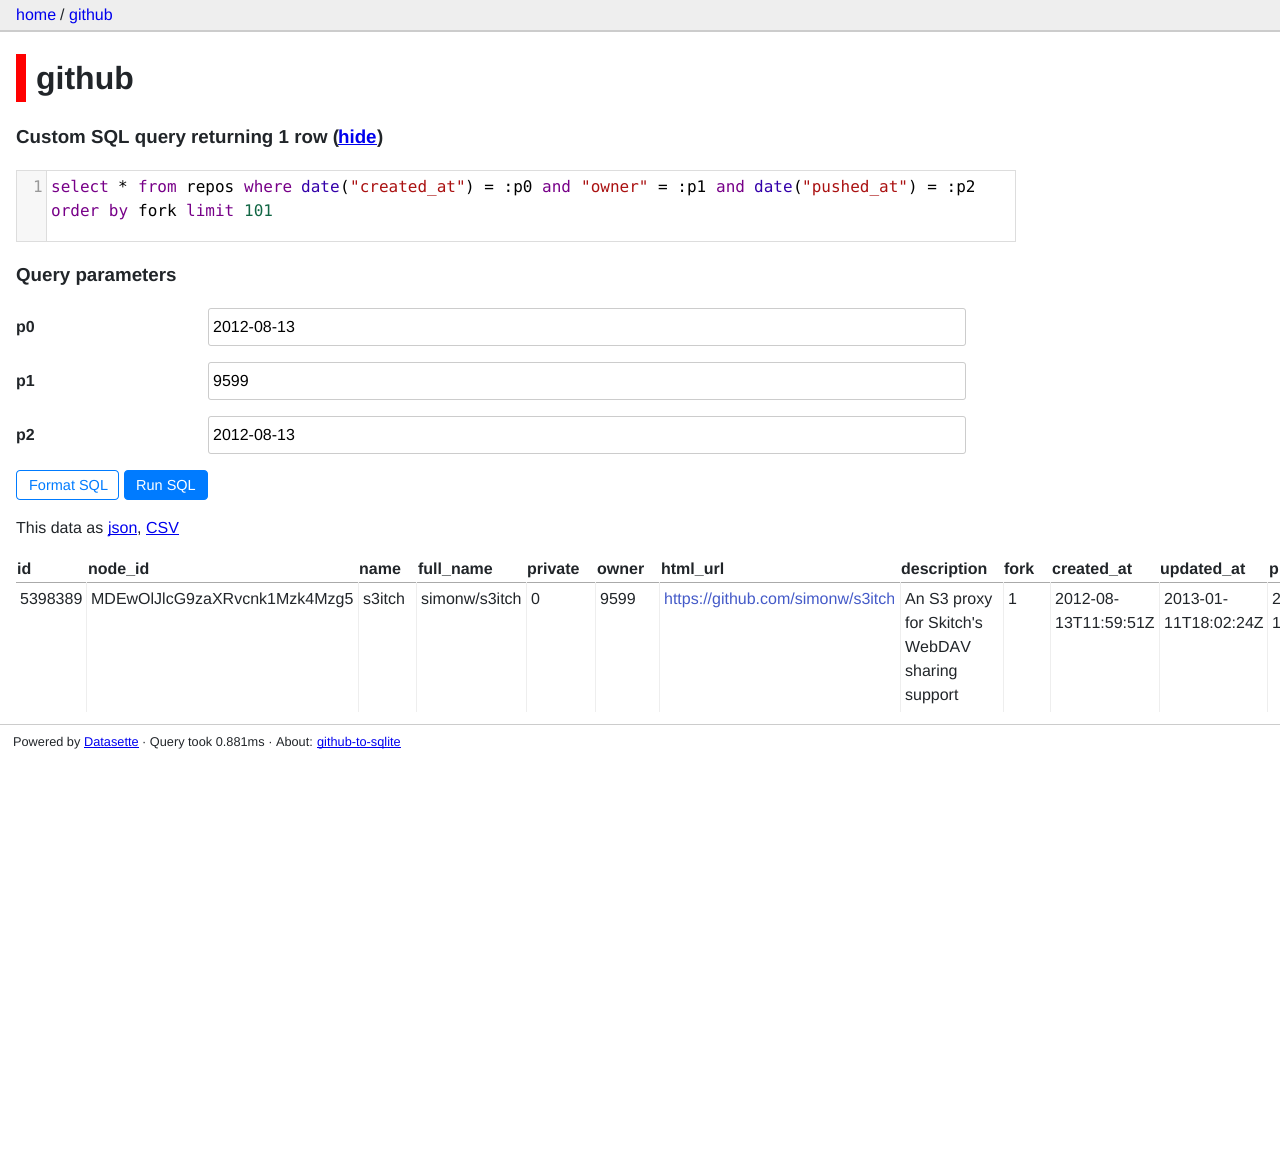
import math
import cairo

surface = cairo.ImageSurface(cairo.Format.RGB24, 1280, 1171)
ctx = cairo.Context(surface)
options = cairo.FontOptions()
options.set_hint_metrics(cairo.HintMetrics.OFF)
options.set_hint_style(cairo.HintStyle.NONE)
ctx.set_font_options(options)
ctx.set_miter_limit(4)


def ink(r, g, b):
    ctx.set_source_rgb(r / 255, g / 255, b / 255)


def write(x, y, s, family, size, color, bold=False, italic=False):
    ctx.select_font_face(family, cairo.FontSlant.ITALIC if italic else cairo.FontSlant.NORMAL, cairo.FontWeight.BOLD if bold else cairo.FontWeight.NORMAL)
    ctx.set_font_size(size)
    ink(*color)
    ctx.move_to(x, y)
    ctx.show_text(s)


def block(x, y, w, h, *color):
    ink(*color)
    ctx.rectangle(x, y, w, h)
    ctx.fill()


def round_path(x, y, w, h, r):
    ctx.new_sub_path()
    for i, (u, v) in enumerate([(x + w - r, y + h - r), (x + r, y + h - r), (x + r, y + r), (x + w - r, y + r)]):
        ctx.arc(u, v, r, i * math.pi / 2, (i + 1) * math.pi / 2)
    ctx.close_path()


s1 = dict(family="Liberation Sans", size=16, color=(0, 0, 238))
s2 = dict(family="Liberation Sans", size=16, color=(33, 37, 41))
s3 = dict(family="Liberation Sans", size=32, color=(33, 37, 41), bold=True)
s4 = dict(family="Liberation Sans", size=18.75, color=(33, 37, 41), bold=True)
s5 = dict(family="Liberation Sans", size=18.75, color=(0, 0, 238), bold=True)
s6 = dict(family="DejaVu Sans Mono", size=16, color=(153, 153, 153))
s7 = dict(family="DejaVu Sans Mono", size=16, color=(119, 0, 136))
s8 = dict(family="DejaVu Sans Mono", size=16, color=(0, 0, 0))
s9 = dict(family="DejaVu Sans Mono", size=16, color=(51, 0, 170))
s10 = dict(family="DejaVu Sans Mono", size=16, color=(170, 17, 17))
s11 = dict(family="DejaVu Sans Mono", size=16, color=(17, 102, 68))
s12 = dict(family="Liberation Sans", size=16, color=(33, 37, 41), bold=True)
s13 = dict(family="Liberation Sans", size=16, color=(0, 0, 0))
s14 = dict(family="Liberation Sans", size=14.5, color=(0, 123, 255))
s15 = dict(family="Liberation Sans", size=14.5, color=(255, 255, 255))
s16 = dict(family="Liberation Sans", size=16, color=(68, 90, 200))
s17 = dict(family="Liberation Sans", size=12.75, color=(33, 37, 41))
s18 = dict(family="Liberation Sans", size=12.75, color=(0, 0, 238))

ink(255, 255, 255)
ctx.paint()
block(0, 0, 1280, 30, 238, 238, 238)
block(0, 30, 1280, 2, 204, 204, 204)
write(16, 20, "home", **s1)
write(60, 20, "/", **s2)
write(69, 20, "github", **s1)
block(16, 54, 10, 48, 255, 0, 0)
write(36, 89, "github", **s3)
write(16, 143, "Custom SQL query returning 1 row (", **s4)
write(338, 143, "hide", **s5)
block(338, 144, 39, 1, 0, 0, 238)
write(377, 143, ")", **s4)
ctx.rectangle(16.5, 170.5, 999, 71)
ink(221, 221, 221)
ctx.set_line_width(1)
ctx.stroke()
block(17, 171, 29, 70, 247, 247, 247)
block(46, 171, 1, 70, 221, 221, 221)
write(33, 192, "1", **s6)
write(51, 192, "select", **s7)
write(118, 192, "*", **s8)
write(138, 192, "from", **s7)
write(186, 192, "repos", **s8)
write(244, 192, "where", **s7)
write(301, 192, "date", **s9)
write(340, 192, "(", **s8)
write(350, 192, "\"created_at\"", **s10)
write(465, 192, ") = :p0", **s8)
write(542, 192, "and", **s7)
write(581, 192, "\"owner\"", **s10)
write(658, 192, "= :p1", **s8)
write(716, 192, "and", **s7)
write(754, 192, "date", **s9)
write(793, 192, "(", **s8)
write(802, 192, "\"pushed_at\"", **s10)
write(908, 192, ") = :p2", **s8)
write(51, 216, "order by", **s7)
write(138, 216, "fork", **s8)
write(186, 216, "limit", **s7)
write(244, 216, "101", **s11)
write(16, 281, "Query parameters", **s4)
write(16, 332, "p0", **s12)
round_path(208.5, 308.5, 757, 37, 2.5)
ink(204, 204, 204)
ctx.stroke()
write(213, 332, "2012-08-13", **s13)
write(16, 386, "p1", **s12)
round_path(208.5, 362.5, 757, 37, 2.5)
ink(204, 204, 204)
ctx.stroke()
write(213, 386, "9599", **s13)
write(16, 440, "p2", **s12)
round_path(208.5, 416.5, 757, 37, 2.5)
ink(204, 204, 204)
ctx.stroke()
write(213, 440, "2012-08-13", **s13)
round_path(16.5, 470.5, 102, 29, 3.5)
ink(0, 123, 255)
ctx.stroke()
write(29, 490, "Format SQL", **s14)
round_path(124.5, 470.5, 83, 29, 3.5)
ctx.fill_preserve()
ctx.stroke()
write(136, 490, "Run SQL", **s15)
write(16, 533, "This data as", **s2)
block(108, 534, 29, 1, 0, 0, 238)
write(108, 533, "json", **s1)
write(137, 533, ",", **s2)
write(146, 533, "CSV", **s1)
block(146, 534, 33, 1, 0, 0, 238)
write(17, 574, "id", **s12)
write(88, 574, "node_id", **s12)
write(359, 574, "name", **s12)
write(418, 574, "full_name", **s12)
write(527, 574, "private", **s12)
write(597, 574, "owner", **s12)
write(661, 574, "html_url", **s12)
write(901, 574, "description", **s12)
write(1004, 574, "fork", **s12)
write(1052, 574, "created_at", **s12)
write(1160, 574, "updated_at", **s12)
write(1269, 574, "p", **s12)
block(16, 582, 1264, 1, 170, 170, 170)
block(86, 582, 1, 130, 238, 238, 238)
write(20, 604, "5398389", **s2)
block(358, 582, 1, 130, 238, 238, 238)
write(91, 604, "MDEwOlJlcG9zaXRvcnk1Mzk4Mzg5", **s2)
block(416, 582, 1, 130, 238, 238, 238)
write(363, 604, "s3itch", **s2)
block(526, 582, 1, 130, 238, 238, 238)
write(421, 604, "simonw/s3itch", **s2)
block(595, 582, 1, 130, 238, 238, 238)
write(531, 604, "0", **s2)
block(659, 582, 1, 130, 238, 238, 238)
write(600, 604, "9599", **s2)
block(900, 582, 1, 130, 238, 238, 238)
write(664, 604, "https://github.com/simonw/s3itch", **s16)
block(1003, 582, 1, 130, 238, 238, 238)
write(905, 604, "An S3 proxy", **s2)
write(905, 628, "for Skitch's", **s2)
write(905, 652, "WebDAV", **s2)
write(905, 676, "sharing", **s2)
write(905, 700, "support", **s2)
block(1050, 582, 1, 130, 238, 238, 238)
write(1008, 604, "1", **s2)
block(1159, 582, 1, 130, 238, 238, 238)
write(1055, 604, "2012-08-", **s2)
write(1055, 628, "13T11:59:51Z", **s2)
block(1267, 582, 1, 130, 238, 238, 238)
write(1164, 604, "2013-01-", **s2)
write(1164, 628, "11T18:02:24Z", **s2)
write(1272, 604, "2", **s2)
write(1272, 628, "1", **s2)
block(0, 724, 1280, 1, 204, 204, 204)
write(13, 746, "Powered by", **s17)
write(84, 746, "Datasette", **s18)
block(84, 747, 55, 1, 0, 0, 238)
write(142, 746, "· Query took 0.881ms · About:", **s17)
block(317, 747, 84, 1, 0, 0, 238)
write(317, 746, "github-to-sqlite", **s18)
surface.write_to_png("screenshot.png")
